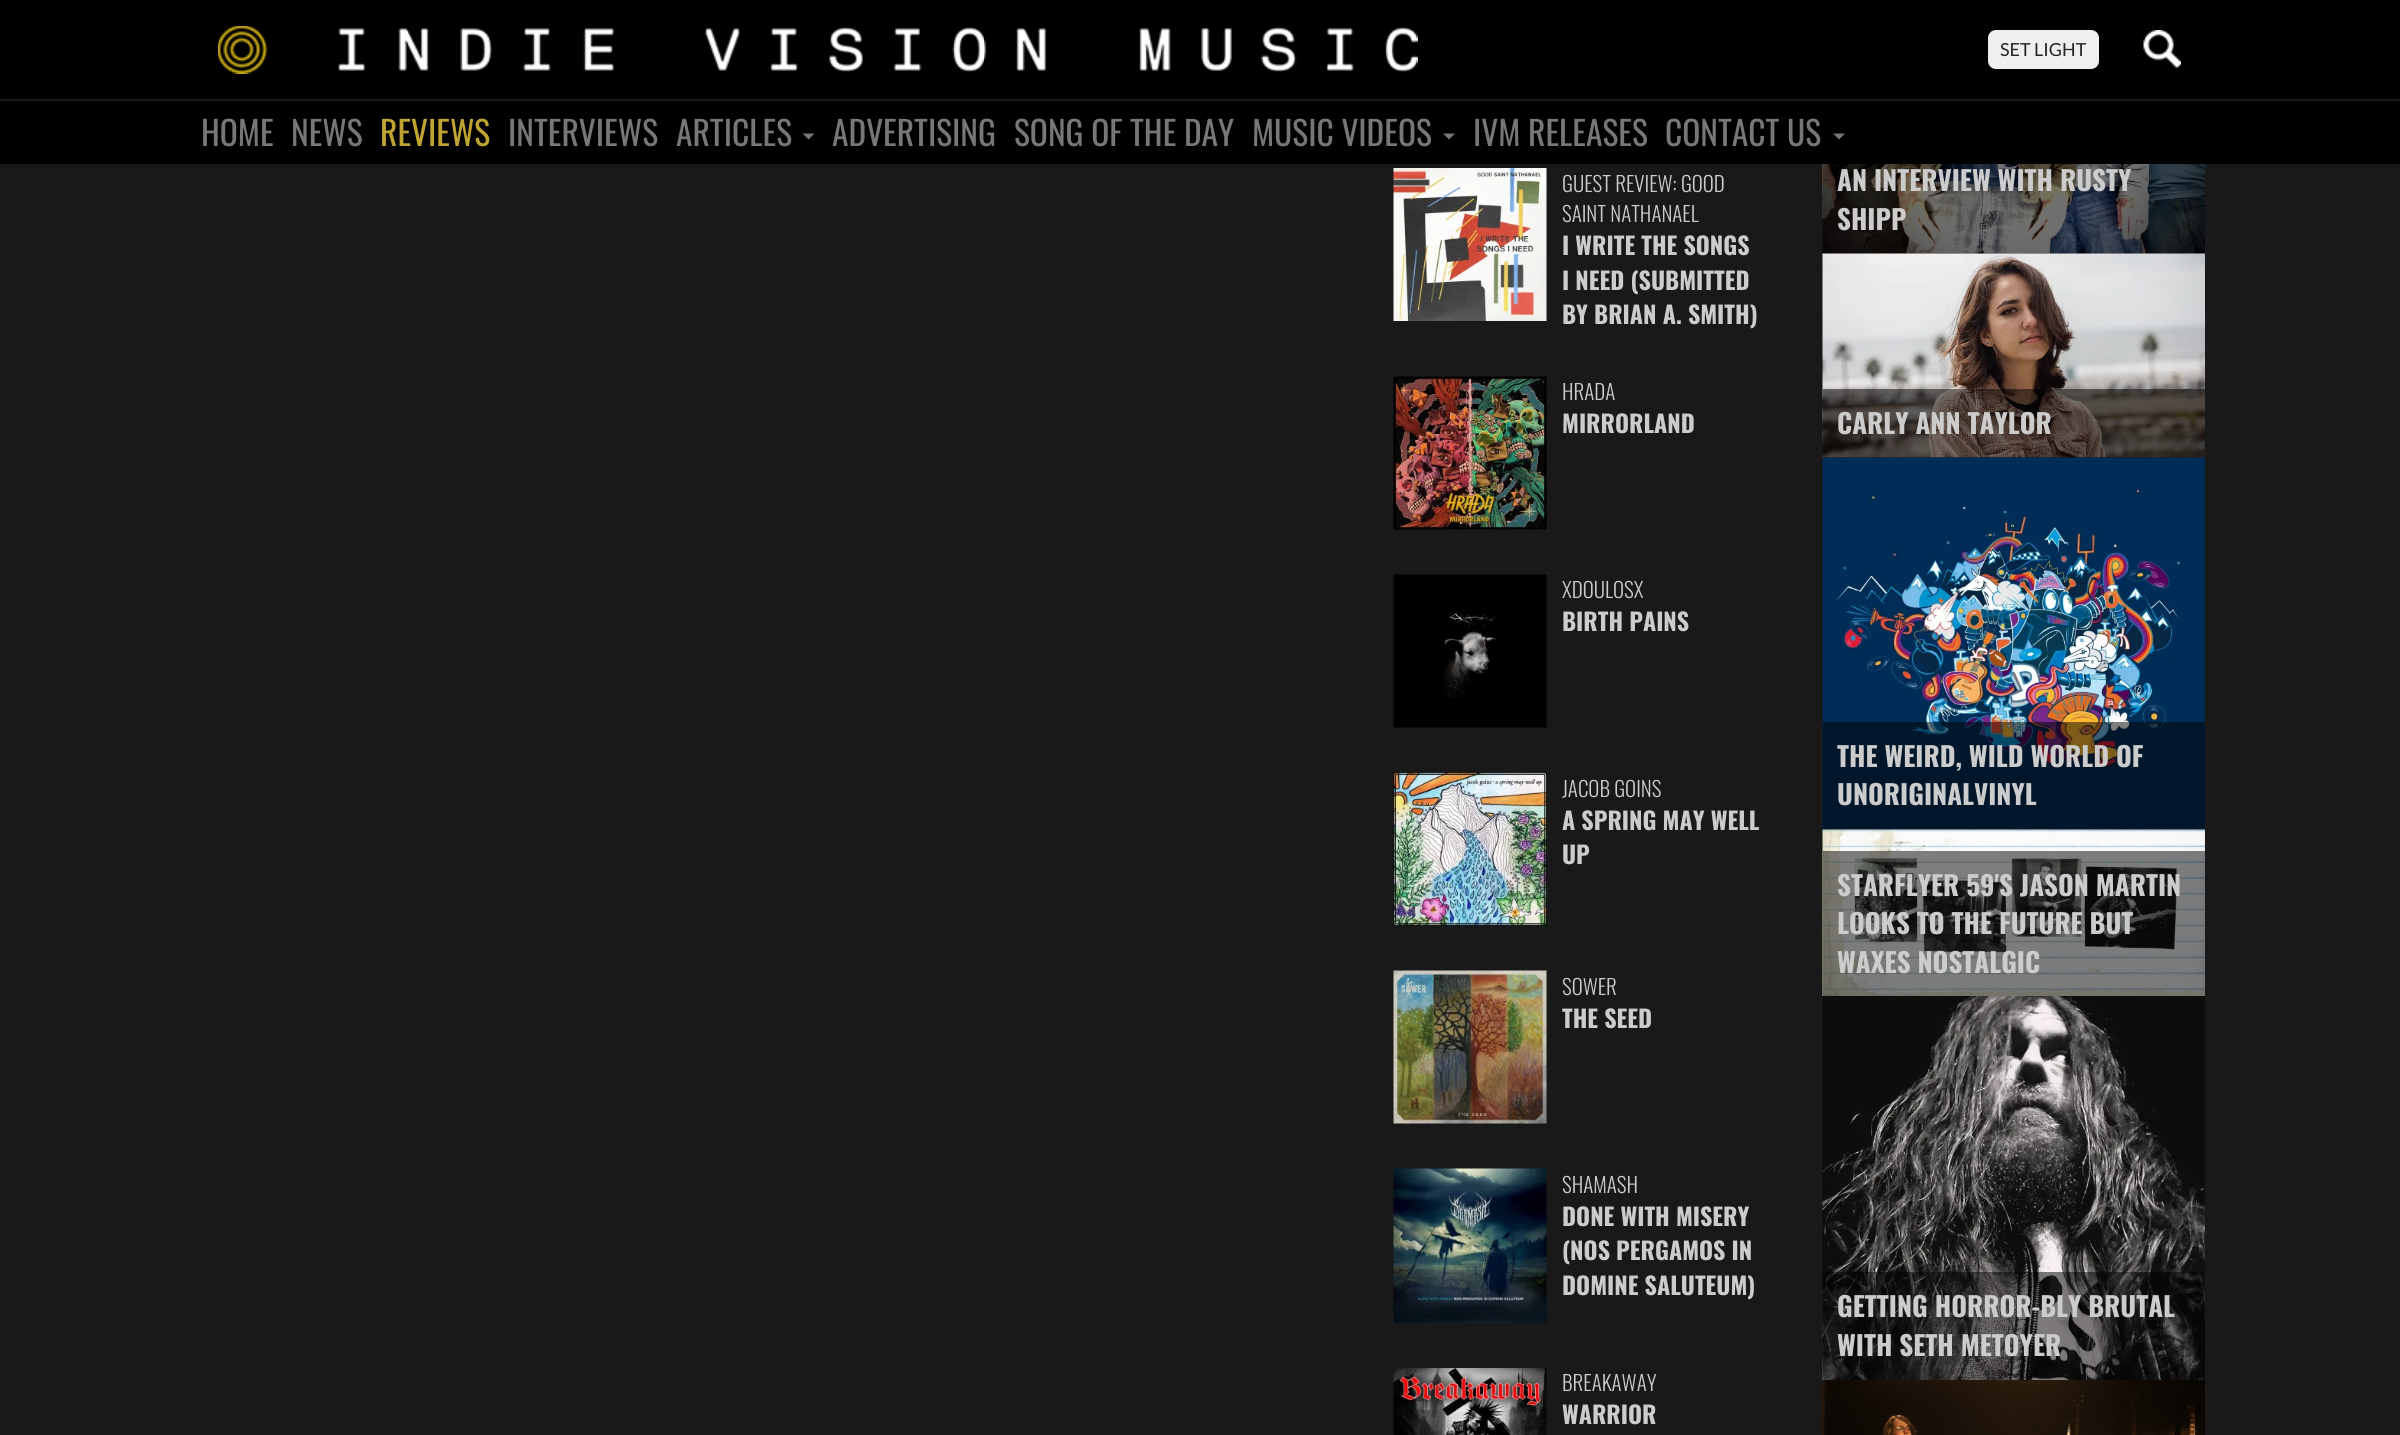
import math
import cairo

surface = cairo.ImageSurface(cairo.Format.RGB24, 2400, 1435)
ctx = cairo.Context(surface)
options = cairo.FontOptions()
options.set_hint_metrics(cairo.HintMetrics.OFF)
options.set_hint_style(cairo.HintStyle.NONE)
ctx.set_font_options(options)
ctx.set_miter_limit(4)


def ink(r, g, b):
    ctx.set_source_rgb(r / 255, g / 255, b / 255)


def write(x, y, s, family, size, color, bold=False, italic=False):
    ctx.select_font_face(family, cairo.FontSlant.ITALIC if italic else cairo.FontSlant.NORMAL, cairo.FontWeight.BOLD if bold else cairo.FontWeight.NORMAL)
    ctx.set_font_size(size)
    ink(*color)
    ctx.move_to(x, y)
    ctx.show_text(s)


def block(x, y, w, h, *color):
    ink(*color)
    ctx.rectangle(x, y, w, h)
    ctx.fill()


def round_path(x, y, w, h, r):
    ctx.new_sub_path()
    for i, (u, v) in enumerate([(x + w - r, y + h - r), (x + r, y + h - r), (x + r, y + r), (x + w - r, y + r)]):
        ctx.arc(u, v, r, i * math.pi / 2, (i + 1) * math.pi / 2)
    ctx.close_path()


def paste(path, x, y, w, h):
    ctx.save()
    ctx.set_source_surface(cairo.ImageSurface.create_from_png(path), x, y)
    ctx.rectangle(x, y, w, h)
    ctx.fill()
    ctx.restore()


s1 = dict(family="Lato", size=18, color=(35, 35, 35))
s2 = dict(family="Oswald", size=33.5, color=(119, 119, 119))
s3 = dict(family="Oswald", size=33.5, color=(191, 164, 50))
s4 = dict(family="Oswald Light", size=21, color=(204, 204, 204))
s5 = dict(family="Oswald", size=24, color=(204, 204, 204), bold=True)
s6 = dict(family="Oswald", size=27, color=(204, 204, 204), bold=True)

ink(25, 25, 25)
ctx.paint()
block(0, 0, 2400, 164, 0, 0, 0)
paste("pic1.png", 218, 26, 1200, 48)
ink(239, 239, 239)
round_path(1988, 30, 111, 39, 8)
ctx.fill()
write(2000, 56, "SET LIGHT", **s1)
paste("pic2.png", 2143, 30, 38, 38)
block(0, 99, 2400, 2, 26, 26, 26)
write(201, 146, "HOME", **s2)
write(291, 146, "NEWS", **s2)
write(380, 146, "REVIEWS", **s3)
write(508, 146, "INTERVIEWS", **s2)
write(676, 146, "ARTICLES", **s2)
ctx.new_path()
ctx.move_to(802.5, 133.5)
ctx.line_to(814.5, 133.5)
ctx.line_to(808.5, 139.5)
ctx.close_path()
ctx.fill()
write(832, 146, "ADVERTISING", **s2)
write(1014, 146, "SONG OF THE DAY", **s2)
write(1252, 146, "MUSIC VIDEOS", **s2)
ctx.new_path()
ctx.move_to(1443, 133.5)
ctx.line_to(1455, 133.5)
ctx.line_to(1449, 139.5)
ctx.close_path()
ctx.fill()
write(1473, 146, "IVM RELEASES", **s2)
write(1665, 146, "CONTACT US", **s2)
ctx.new_path()
ctx.move_to(1833, 133.5)
ctx.line_to(1845, 133.5)
ctx.line_to(1839, 139.5)
ctx.close_path()
ctx.fill()
paste("pic3.png", 1393, 168, 154, 153)
write(1562, 192, "GUEST REVIEW: GOOD", **s4)
write(1562, 222, "SAINT NATHANAEL", **s4)
write(1562, 255, "I WRITE THE SONGS", **s5)
write(1562, 290, "I NEED (SUBMITTED", **s5)
write(1562, 324, "BY BRIAN A. SMITH)", **s5)
paste("pic4.png", 1393, 376, 154, 154)
write(1562, 400, "HRADA", **s4)
write(1562, 433, "MIRRORLAND", **s5)
paste("pic5.png", 1393, 574, 154, 154)
write(1562, 598, "XDOULOSX", **s4)
write(1562, 631, "BIRTH PAINS", **s5)
paste("pic6.png", 1393, 772, 154, 154)
write(1562, 797, "JACOB GOINS", **s4)
write(1562, 830, "A SPRING MAY WELL", **s5)
write(1562, 864, "UP", **s5)
paste("pic7.png", 1393, 970, 154, 154)
write(1562, 995, "SOWER", **s4)
write(1562, 1028, "THE SEED", **s5)
paste("pic8.png", 1393, 1168, 154, 155)
write(1562, 1193, "SHAMASH", **s4)
write(1562, 1226, "DONE WITH MISERY", **s5)
write(1562, 1260, "(NOS PERGAMOS IN", **s5)
write(1562, 1295, "DOMINE SALUTEUM)", **s5)
paste("pic9.png", 1393, 1368, 154, 67)
write(1562, 1391, "BREAKAWAY", **s4)
write(1562, 1424, "WARRIOR", **s5)
paste("pic10.png", 1822, 164, 383, 90)
ctx.set_source_rgba(0, 0, 0, 0.5)
ctx.rectangle(1823, 164, 382, 90)
ctx.fill()
write(1837, 191, "AN INTERVIEW WITH RUSTY", **s6)
write(1837, 230, "SHIPP", **s6)
paste("pic11.png", 1822, 253, 383, 205)
ctx.set_source_rgba(0, 0, 0, 0.5)
ctx.rectangle(1823, 389, 382, 69)
ctx.fill()
write(1837, 434, "CARLY ANN TAYLOR", **s6)
paste("pic12.png", 1822, 457, 383, 373)
ctx.set_source_rgba(0, 0, 0, 0.5)
ctx.rectangle(1823, 722, 382, 108)
ctx.fill()
write(1837, 767, "THE WEIRD, WILD WORLD OF", **s6)
write(1837, 805, "UNORIGINALVINYL", **s6)
paste("pic13.png", 1822, 829, 383, 167)
ctx.set_source_rgba(0, 0, 0, 0.5)
ctx.rectangle(1823, 851, 382, 145)
ctx.fill()
write(1837, 896, "STARFLYER 59'S JASON MARTIN", **s6)
write(1837, 934, "LOOKS TO THE FUTURE BUT", **s6)
write(1837, 973, "WAXES NOSTALGIC", **s6)
paste("pic14.png", 1822, 996, 383, 384)
ctx.set_source_rgba(0, 0, 0, 0.5)
ctx.rectangle(1823, 1272, 382, 108)
ctx.fill()
write(1837, 1317, "GETTING HORROR-BLY BRUTAL", **s6)
write(1837, 1356, "WITH SETH METOYER", **s6)
paste("pic15.png", 1822, 1380, 383, 55)
surface.write_to_png("screenshot.png")
